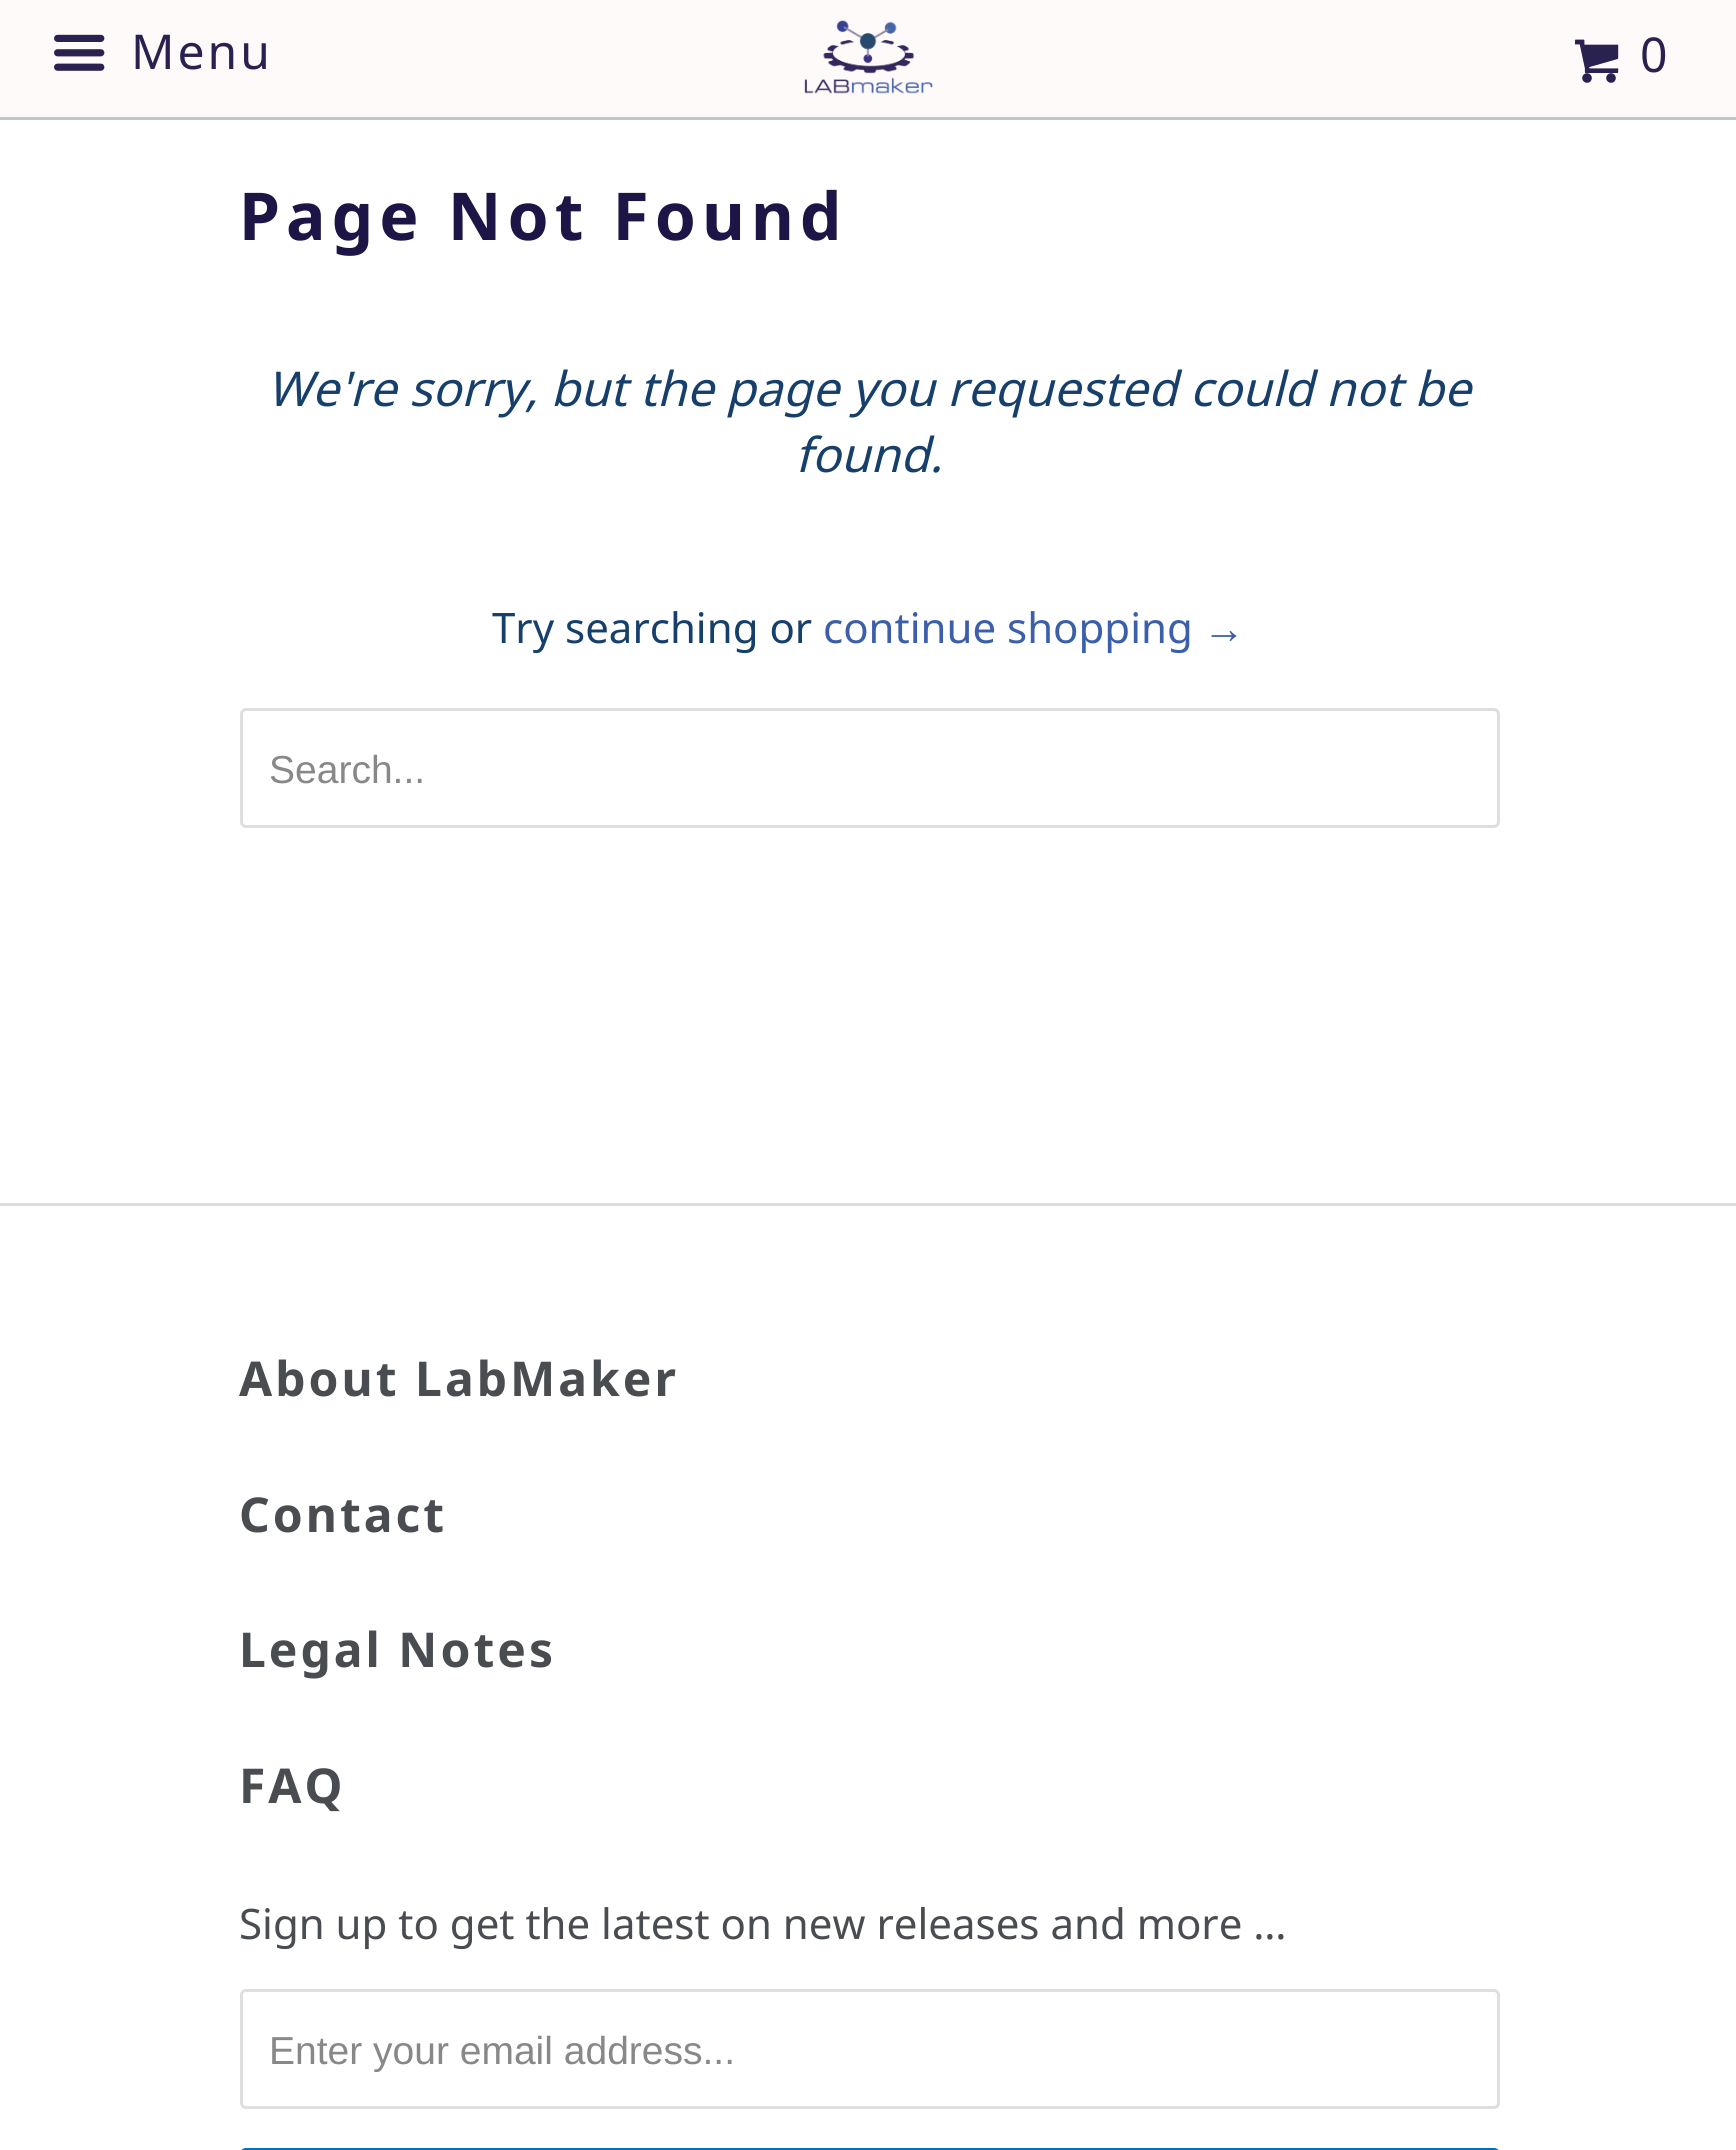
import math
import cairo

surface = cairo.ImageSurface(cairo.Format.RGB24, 1736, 2150)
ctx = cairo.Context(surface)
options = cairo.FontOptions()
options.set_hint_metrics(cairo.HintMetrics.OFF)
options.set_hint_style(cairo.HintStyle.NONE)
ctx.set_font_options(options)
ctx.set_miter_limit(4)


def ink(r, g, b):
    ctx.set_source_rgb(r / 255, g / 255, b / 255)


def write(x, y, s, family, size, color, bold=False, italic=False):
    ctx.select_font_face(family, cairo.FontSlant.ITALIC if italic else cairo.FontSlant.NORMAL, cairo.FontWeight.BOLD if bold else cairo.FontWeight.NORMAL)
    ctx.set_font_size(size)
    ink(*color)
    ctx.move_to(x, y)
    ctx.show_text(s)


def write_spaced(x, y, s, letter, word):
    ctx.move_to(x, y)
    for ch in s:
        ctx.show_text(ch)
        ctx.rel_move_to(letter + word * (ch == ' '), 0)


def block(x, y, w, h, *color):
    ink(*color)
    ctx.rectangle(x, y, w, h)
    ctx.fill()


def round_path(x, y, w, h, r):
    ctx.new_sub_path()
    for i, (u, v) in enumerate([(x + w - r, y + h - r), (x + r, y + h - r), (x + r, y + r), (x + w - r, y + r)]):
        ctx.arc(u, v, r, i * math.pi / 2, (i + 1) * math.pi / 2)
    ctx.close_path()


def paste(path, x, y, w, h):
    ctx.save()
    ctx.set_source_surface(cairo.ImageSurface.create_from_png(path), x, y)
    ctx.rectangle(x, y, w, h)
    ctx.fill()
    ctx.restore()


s1 = dict(family="Noto Sans", size=48, color=(22, 63, 108), italic=True)
s2 = dict(family="Noto Sans", size=42, color=(22, 63, 108))
s3 = dict(family="Noto Sans", size=42, color=(59, 95, 171))
s4 = dict(family="Liberation Serif", size=42, color=(59, 95, 171))
s5 = dict(family="Liberation Sans", size=39, color=(136, 136, 136))
s6 = dict(family="Noto Sans", size=42, color=(73, 76, 80))

ink(255, 255, 255)
ctx.paint()
block(0, 0, 1736, 117, 255, 250, 250)
block(0, 117, 1736, 3, 188, 201, 201)
paste("pic1.png", 54, 34, 51, 37)
ctx.select_font_face("Noto Sans")
ctx.set_font_size(48)
ink(41, 33, 80)
write_spaced(131, 69, "Menu", 3, 0)
paste("pic2.png", 804, 20, 129, 74)
paste("pic3.png", 1575, 39, 44, 44)
write_spaced(1640, 72, "0", 3, 0)
ctx.select_font_face("Noto Sans", cairo.FontSlant.NORMAL, cairo.FontWeight.BOLD)
ctx.set_font_size(66)
ink(30, 21, 71)
write_spaced(239, 240, "Page Not Found", 6, 0)
write(267, 406, "We're sorry, but the page you requested could not be", **s1)
write(795, 472, "found.", **s1)
write(492, 643, "Try searching or", **s2)
write(823, 643, "continue shopping", **s3)
write(1203, 643, "→", **s4)
round_path(241.5, 709.5, 1257, 117, 4.5)
ink(223, 223, 223)
ctx.set_line_width(3)
ctx.stroke()
write(269, 783, "Search...", **s5)
block(0, 1203, 1736, 3, 221, 221, 221)
ctx.select_font_face("Noto Sans", cairo.FontSlant.NORMAL, cairo.FontWeight.BOLD)
ctx.set_font_size(48)
ink(73, 76, 80)
write_spaced(239, 1396, "About LabMaker", 3, 0)
write_spaced(239, 1532, "Contact", 3, 0)
write_spaced(239, 1667, "Legal Notes", 3, 0)
write_spaced(239, 1803, "FAQ", 3, 0)
write(239, 1939, "Sign up to get the latest on new releases and more …", **s6)
round_path(241.5, 1990.5, 1257, 117, 4.5)
ink(223, 223, 223)
ctx.stroke()
write(269, 2064, "Enter your email address...", **s5)
ink(0, 113, 188)
round_path(240, 2148, 1260, 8, 6)
ctx.fill()
surface.write_to_png("screenshot.png")
